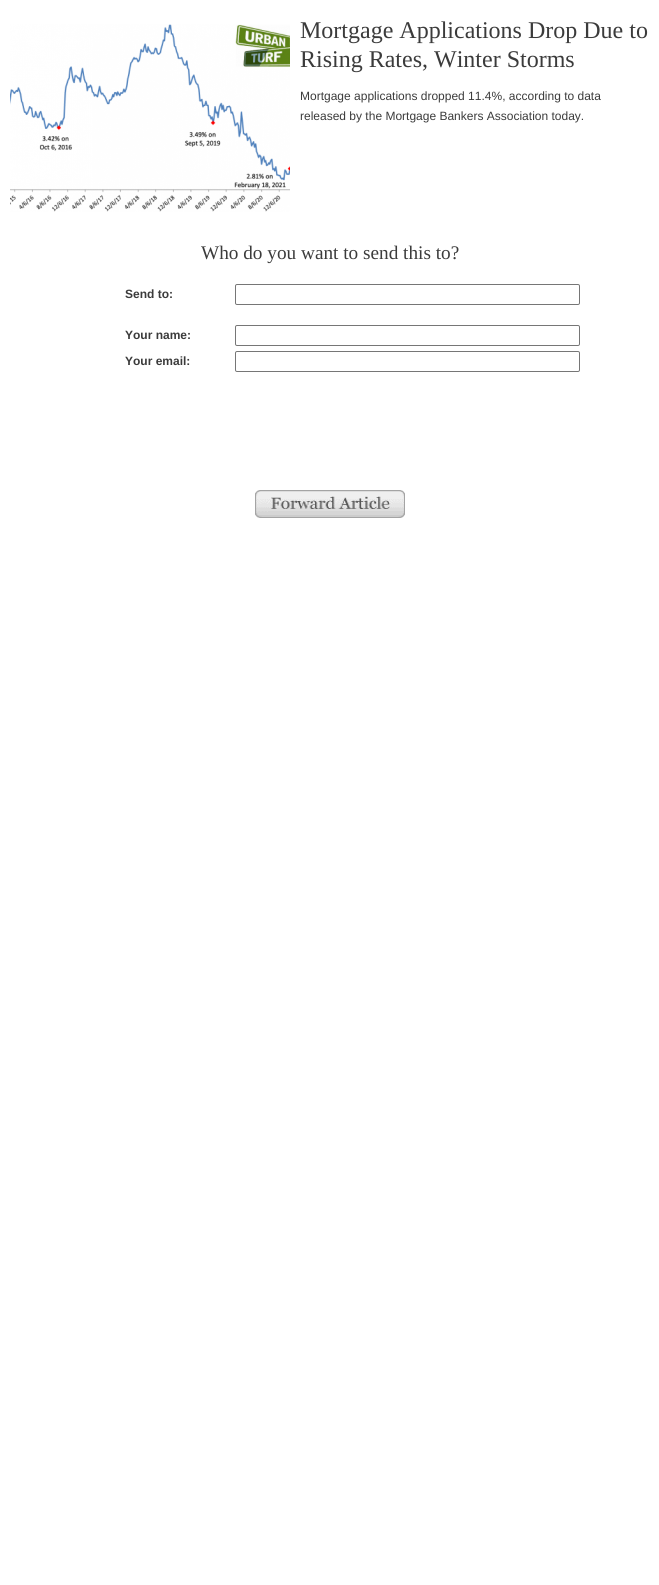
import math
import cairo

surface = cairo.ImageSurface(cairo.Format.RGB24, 659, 1585)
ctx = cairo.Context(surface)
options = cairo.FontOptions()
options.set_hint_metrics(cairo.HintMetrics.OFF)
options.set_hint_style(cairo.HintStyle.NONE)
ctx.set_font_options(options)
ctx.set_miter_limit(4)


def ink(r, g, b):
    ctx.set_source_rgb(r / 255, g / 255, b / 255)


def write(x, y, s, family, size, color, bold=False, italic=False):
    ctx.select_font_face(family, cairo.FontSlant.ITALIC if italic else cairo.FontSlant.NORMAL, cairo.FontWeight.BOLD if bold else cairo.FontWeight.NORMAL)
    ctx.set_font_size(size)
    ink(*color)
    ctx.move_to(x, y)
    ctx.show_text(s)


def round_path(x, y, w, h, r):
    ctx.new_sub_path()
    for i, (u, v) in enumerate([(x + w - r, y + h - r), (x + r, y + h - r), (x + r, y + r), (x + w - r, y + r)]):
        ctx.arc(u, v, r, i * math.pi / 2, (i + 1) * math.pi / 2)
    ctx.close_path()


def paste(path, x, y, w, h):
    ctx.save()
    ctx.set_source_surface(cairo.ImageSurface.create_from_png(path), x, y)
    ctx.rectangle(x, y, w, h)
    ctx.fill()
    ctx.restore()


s1 = dict(family="Liberation Serif", size=24, color=(59, 59, 59))
s2 = dict(family="Liberation Sans", size=12, color=(59, 59, 59))
s3 = dict(family="Liberation Serif", size=19.25, color=(59, 59, 59))
s4 = dict(family="Liberation Sans", size=12, color=(59, 59, 59), bold=True)

ink(255, 255, 255)
ctx.paint()
paste("pic1.png", 10, 24, 280, 188)
write(300, 38, "Mortgage Applications Drop Due to", **s1)
write(300, 67, "Rising Rates, Winter Storms", **s1)
write(300, 100, "Mortgage applications dropped 11.4%, according to data", **s2)
write(300, 120, "released by the Mortgage Bankers Association today.", **s2)
write(201, 259, "Who do you want to send this to?", **s3)
write(125, 298, "Send to:", **s4)
round_path(235.5, 284.5, 344, 20, 1.5)
ink(118, 118, 118)
ctx.set_line_width(1)
ctx.stroke()
write(125, 339, "Your name:", **s4)
round_path(235.5, 325.5, 344, 20, 1.5)
ink(118, 118, 118)
ctx.stroke()
write(125, 365, "Your email:", **s4)
round_path(235.5, 351.5, 344, 20, 1.5)
ink(118, 118, 118)
ctx.stroke()
paste("pic2.png", 255, 490, 150, 28)
surface.write_to_png("screenshot.png")
